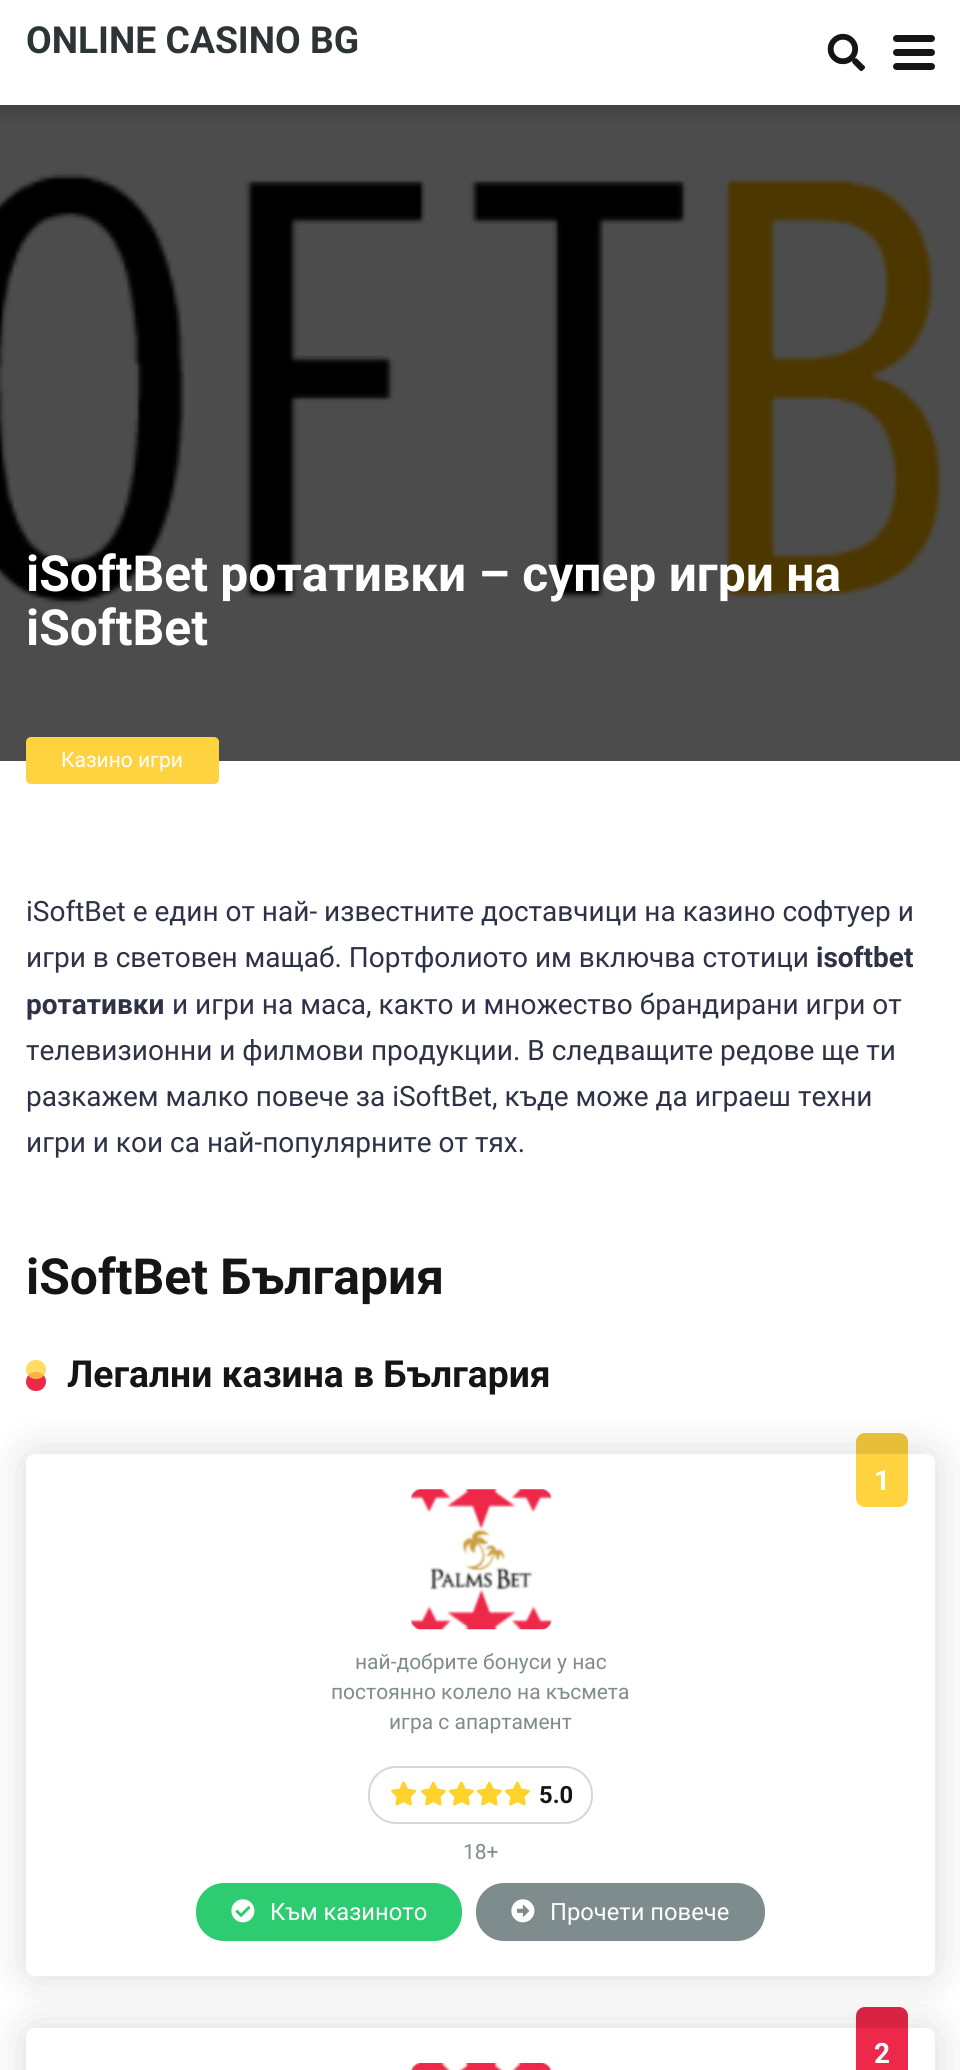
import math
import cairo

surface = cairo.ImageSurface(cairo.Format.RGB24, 960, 2070)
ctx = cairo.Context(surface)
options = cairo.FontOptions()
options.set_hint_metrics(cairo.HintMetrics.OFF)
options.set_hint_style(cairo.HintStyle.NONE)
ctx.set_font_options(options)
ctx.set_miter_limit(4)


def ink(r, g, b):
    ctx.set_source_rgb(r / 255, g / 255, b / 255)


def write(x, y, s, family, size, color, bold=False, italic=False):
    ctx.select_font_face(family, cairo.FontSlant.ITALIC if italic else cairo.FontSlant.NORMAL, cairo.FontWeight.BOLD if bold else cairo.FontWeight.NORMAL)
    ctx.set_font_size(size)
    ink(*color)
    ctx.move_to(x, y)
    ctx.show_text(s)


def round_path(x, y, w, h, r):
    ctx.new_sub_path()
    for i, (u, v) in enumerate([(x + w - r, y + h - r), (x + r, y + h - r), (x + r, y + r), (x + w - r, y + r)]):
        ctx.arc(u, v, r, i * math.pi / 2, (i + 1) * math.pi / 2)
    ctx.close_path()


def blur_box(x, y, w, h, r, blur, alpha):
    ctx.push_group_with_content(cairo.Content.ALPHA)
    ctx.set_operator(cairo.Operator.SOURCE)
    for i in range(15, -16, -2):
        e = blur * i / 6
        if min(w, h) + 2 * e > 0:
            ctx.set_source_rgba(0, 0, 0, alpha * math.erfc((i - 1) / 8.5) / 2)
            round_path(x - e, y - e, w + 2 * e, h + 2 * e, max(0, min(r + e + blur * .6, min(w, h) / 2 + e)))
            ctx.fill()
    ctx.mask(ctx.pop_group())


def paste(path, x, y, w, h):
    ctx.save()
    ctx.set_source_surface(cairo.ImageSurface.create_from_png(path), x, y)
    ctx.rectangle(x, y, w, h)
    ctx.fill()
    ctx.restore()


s1 = dict(family="Roboto", size=37.25, color=(45, 52, 54), bold=True)
s2 = dict(family="Roboto", size=49.75, color=(255, 255, 255), bold=True)
s3 = dict(family="Roboto", size=21, color=(255, 255, 255))
s4 = dict(family="Roboto", size=28, color=(46, 50, 70))
s5 = dict(family="Roboto", size=28, color=(46, 50, 70), bold=True)
s6 = dict(family="Roboto", size=49.75, color=(21, 21, 21), bold=True)
s7 = dict(family="Roboto", size=37.25, color=(21, 21, 21), bold=True)
s8 = dict(family="Roboto", size=28, color=(255, 255, 255), bold=True)
s9 = dict(family="Roboto", size=21, color=(127, 140, 141))
s10 = dict(family="Roboto", size=23.75, color=(21, 21, 21), bold=True)
s11 = dict(family="Roboto", size=23.75, color=(255, 255, 255))

ink(255, 255, 255)
ctx.paint()
paste("pic2.png", 0, 105, 960, 656)
ctx.save()
ctx.rectangle(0, 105, 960, 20)
ctx.clip()
ink(0, 0, 0)
blur_box(0, 0, 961, 105, 0, 13, 0.3)
ctx.restore()
write(26, 53, "ONLINE CASINO BG", **s1)
paste("pic1.png", 827, 33, 39, 39)
ink(21, 21, 21)
round_path(893, 35, 42, 7, 3.5)
ctx.fill()
round_path(893, 49, 42, 7, 3.5)
ctx.fill()
round_path(893, 63, 42, 7, 3.5)
ctx.fill()
write(26, 591, "iSoftBet ротативки – супер игри на", **s2)
write(26, 645, "iSoftBet", **s2)
ink(255, 211, 63)
round_path(26, 737, 193, 47, 5)
ctx.fill()
write(61, 767, "Казино игри", **s3)
write(26, 921, "iSoftBet е един от най- известните доставчици на казино софтуер и", **s4)
write(26, 967, "игри в световен мащаб. Портфолиото им включва стотици", **s4)
write(816, 967, "isoftbet", **s5)
write(26, 1014, "ротативки", **s5)
write(172, 1014, "и игри на маса, както и множество брандирани игри от", **s4)
write(26, 1060, "телевизионни и филмови продукции. В следващите редове ще ти", **s4)
write(26, 1106, "разкажем малко повече за iSoftBet, къде може да играеш техни", **s4)
write(26, 1152, "игри и кои са най-популярните от тях.", **s4)
write(26, 1294, "iSoftBet България", **s6)
ink(0, 0, 0)
blur_box(26, 1454, 909, 522, 9, 22, 0.15)
ink(238, 40, 73)
round_path(26, 1372, 20, 19, 9.5)
ctx.fill()
ctx.set_source_rgba(1, 0.827, 0.247, 0.8)
round_path(26, 1360, 20, 19, 9.5)
ctx.fill()
write(67, 1387, "Легални казина в България", **s7)
ink(255, 255, 255)
round_path(26, 1454, 909, 522, 9)
ctx.fill()
ink(255, 211, 63)
round_path(856, 1433, 52, 74, 9)
ctx.fill()
ctx.set_source_rgba(0, 0, 0, 0.1)
ctx.new_path()
ctx.move_to(865, 1433)
ctx.line_to(899, 1433)
ctx.curve_to(904, 1433, 908, 1437, 908, 1442)
ctx.line_to(908, 1454)
ctx.line_to(856, 1454)
ctx.line_to(856, 1442)
ctx.curve_to(856, 1437, 860, 1433, 865, 1433)
ctx.close_path()
ctx.fill()
write(874, 1490, "1", **s8)
paste("pic3.png", 411, 1489, 141, 141)
write(355, 1669, "най-добрите бонуси у нас", **s9)
write(331, 1699, "постоянно колело на късмета", **s9)
write(389, 1729, "игра с апартамент", **s9)
round_path(369, 1767, 223, 56, 27)
ink(214, 215, 219)
ctx.stroke()
paste("pic4.png", 391, 1781, 25, 25)
paste("pic5.png", 421, 1781, 25, 25)
paste("pic5.png", 449, 1781, 25, 25)
paste("pic5.png", 477, 1781, 25, 25)
paste("pic5.png", 505, 1781, 25, 25)
write(539, 1803, "5.0", **s10)
write(463, 1859, "18+", **s9)
ink(46, 204, 113)
round_path(196, 1883, 266, 58, 28)
ctx.fill()
paste("pic6.png", 231, 1899, 24, 24)
write(270, 1920, "Към казиното", **s11)
ink(127, 140, 141)
round_path(476, 1883, 289, 58, 28)
ctx.fill()
paste("pic7.png", 511, 1899, 24, 24)
write(550, 1920, "Прочети повече", **s11)
ink(0, 0, 0)
blur_box(26, 2028, 909, 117, 9, 22, 0.15)
ink(255, 255, 255)
round_path(26, 2028, 909, 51, 9)
ctx.fill()
ink(238, 40, 73)
round_path(856, 2007, 52, 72, 9)
ctx.fill()
ctx.set_source_rgba(0, 0, 0, 0.1)
ctx.new_path()
ctx.move_to(865, 2007)
ctx.line_to(899, 2007)
ctx.curve_to(904, 2007, 908, 2011, 908, 2016)
ctx.line_to(908, 2028)
ctx.line_to(856, 2028)
ctx.line_to(856, 2016)
ctx.curve_to(856, 2011, 860, 2007, 865, 2007)
ctx.close_path()
ctx.fill()
write(874, 2063, "2", **s8)
paste("pic8.png", 411, 2063, 140, 7)
surface.write_to_png("screenshot.png")
